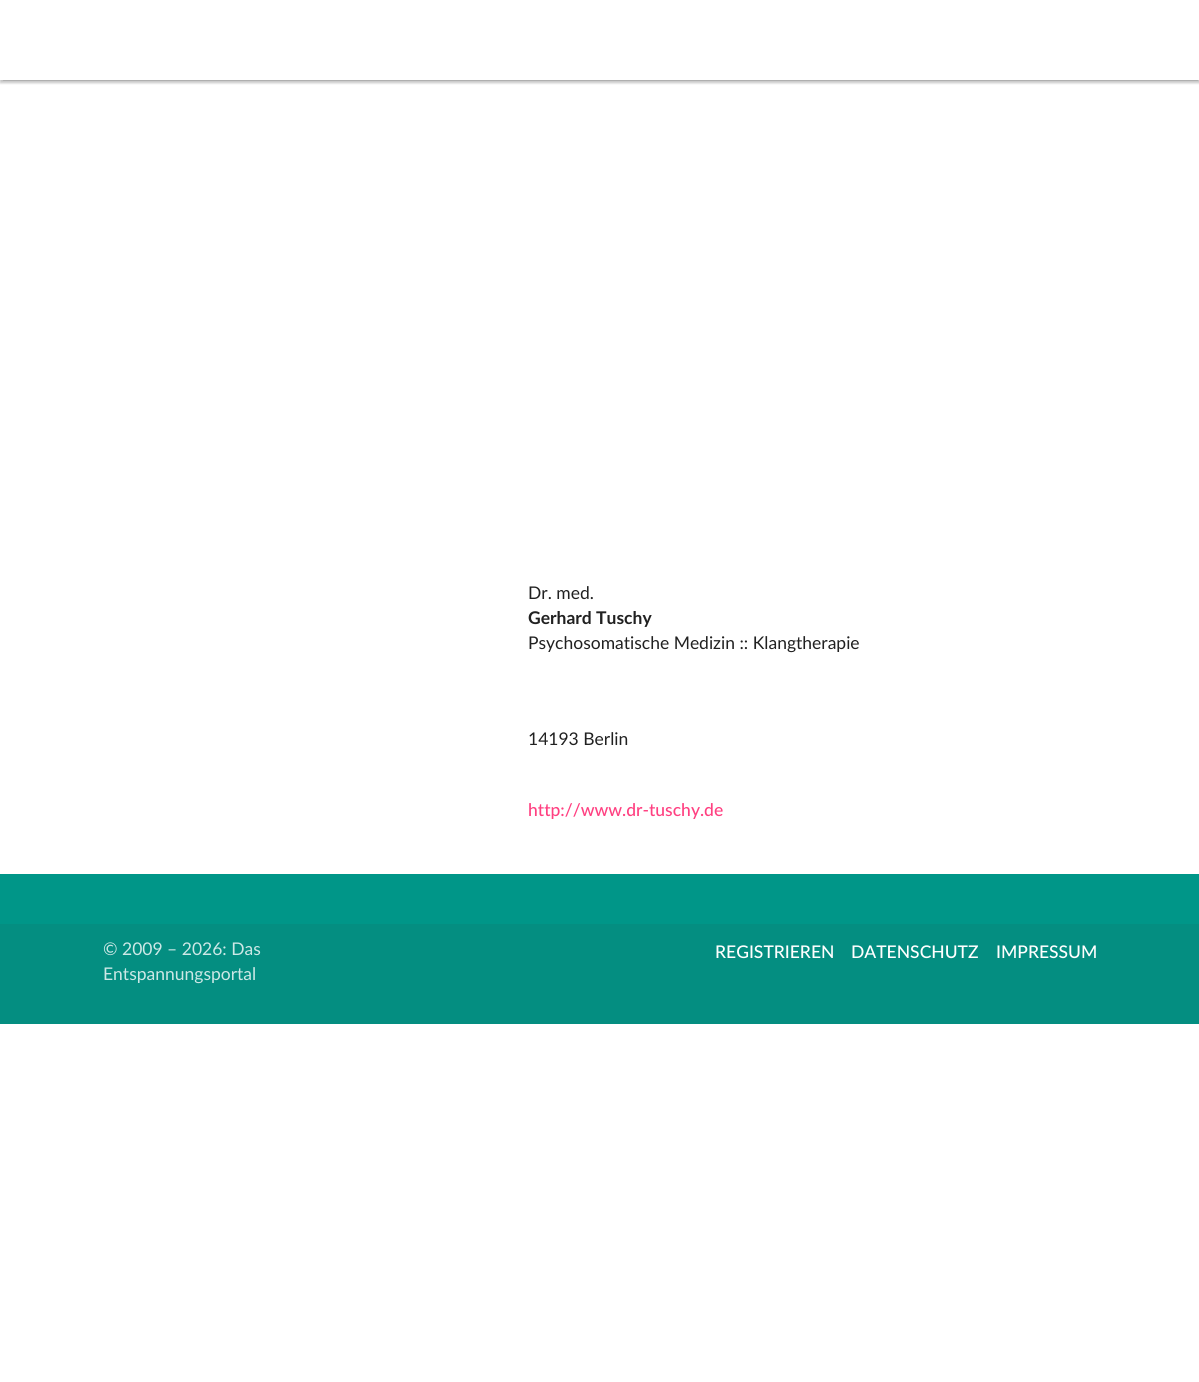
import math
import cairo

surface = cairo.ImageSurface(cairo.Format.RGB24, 1199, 1382)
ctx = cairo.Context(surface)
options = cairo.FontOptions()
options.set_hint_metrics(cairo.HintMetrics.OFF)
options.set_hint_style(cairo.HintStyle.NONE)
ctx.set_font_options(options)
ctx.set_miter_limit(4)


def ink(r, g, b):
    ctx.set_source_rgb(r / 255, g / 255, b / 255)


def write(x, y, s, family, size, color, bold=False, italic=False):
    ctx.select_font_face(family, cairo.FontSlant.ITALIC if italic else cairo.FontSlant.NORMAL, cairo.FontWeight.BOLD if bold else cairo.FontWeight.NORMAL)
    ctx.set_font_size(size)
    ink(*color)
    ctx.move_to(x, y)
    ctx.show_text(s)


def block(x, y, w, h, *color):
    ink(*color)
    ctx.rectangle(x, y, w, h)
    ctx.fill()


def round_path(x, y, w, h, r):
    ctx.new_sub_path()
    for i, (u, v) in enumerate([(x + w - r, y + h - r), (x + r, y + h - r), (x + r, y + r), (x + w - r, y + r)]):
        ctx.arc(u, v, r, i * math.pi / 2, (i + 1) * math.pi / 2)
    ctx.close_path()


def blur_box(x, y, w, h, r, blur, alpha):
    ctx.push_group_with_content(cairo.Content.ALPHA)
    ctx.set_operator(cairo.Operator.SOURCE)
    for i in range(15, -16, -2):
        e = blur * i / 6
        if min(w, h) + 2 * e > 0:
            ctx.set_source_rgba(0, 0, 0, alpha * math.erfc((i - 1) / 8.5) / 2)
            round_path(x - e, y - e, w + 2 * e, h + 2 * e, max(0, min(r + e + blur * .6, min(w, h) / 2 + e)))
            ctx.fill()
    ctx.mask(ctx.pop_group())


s1 = dict(family="Lato", size=17.5, color=(33, 33, 33))
s2 = dict(family="Lato", size=17.5, color=(33, 33, 33), bold=True)
s3 = dict(family="Lato Medium", size=17.5, color=(255, 64, 129))
s4 = dict(family="Lato", size=17.5, color=(205, 232, 230))
s5 = dict(family="Lato Medium", size=17.5, color=(255, 255, 255))

ink(255, 255, 255)
ctx.paint()
ctx.save()
ctx.rectangle(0, 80, 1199, 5)
ctx.clip()
ink(0, 0, 0)
blur_box(0, 1, 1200, 80, 0, 3, 0.2)
ctx.restore()
ctx.save()
ctx.rectangle(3, 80, 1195, 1)
ctx.clip()
ink(0, 0, 0)
blur_box(3, 6, 1195, 75, 0, 0.5, 0.12)
ctx.restore()
ctx.save()
ctx.rectangle(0, 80, 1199, 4)
ctx.clip()
ink(0, 0, 0)
blur_box(0, 3, 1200, 80, 0, 1, 0.14)
ctx.restore()
write(528, 599, "Dr. med.", **s1)
write(528, 624, "Gerhard Tuschy", **s2)
write(528, 649, "Psychosomatische Medizin :: Klangtherapie", **s1)
write(528, 745, "14193 Berlin", **s1)
write(528, 816, "http://www.dr-tuschy.de", **s3)
block(0, 874, 1199, 50, 0, 150, 136)
block(0, 924, 1199, 100, 4, 142, 129)
write(103, 955, "© 2009 – 2026: Das", **s4)
write(103, 980, "Entspannungsportal", **s4)
write(715, 958, "REGISTRIEREN", **s5)
write(851, 958, "DATENSCHUTZ", **s5)
write(996, 958, "IMPRESSUM", **s5)
surface.write_to_png("screenshot.png")
